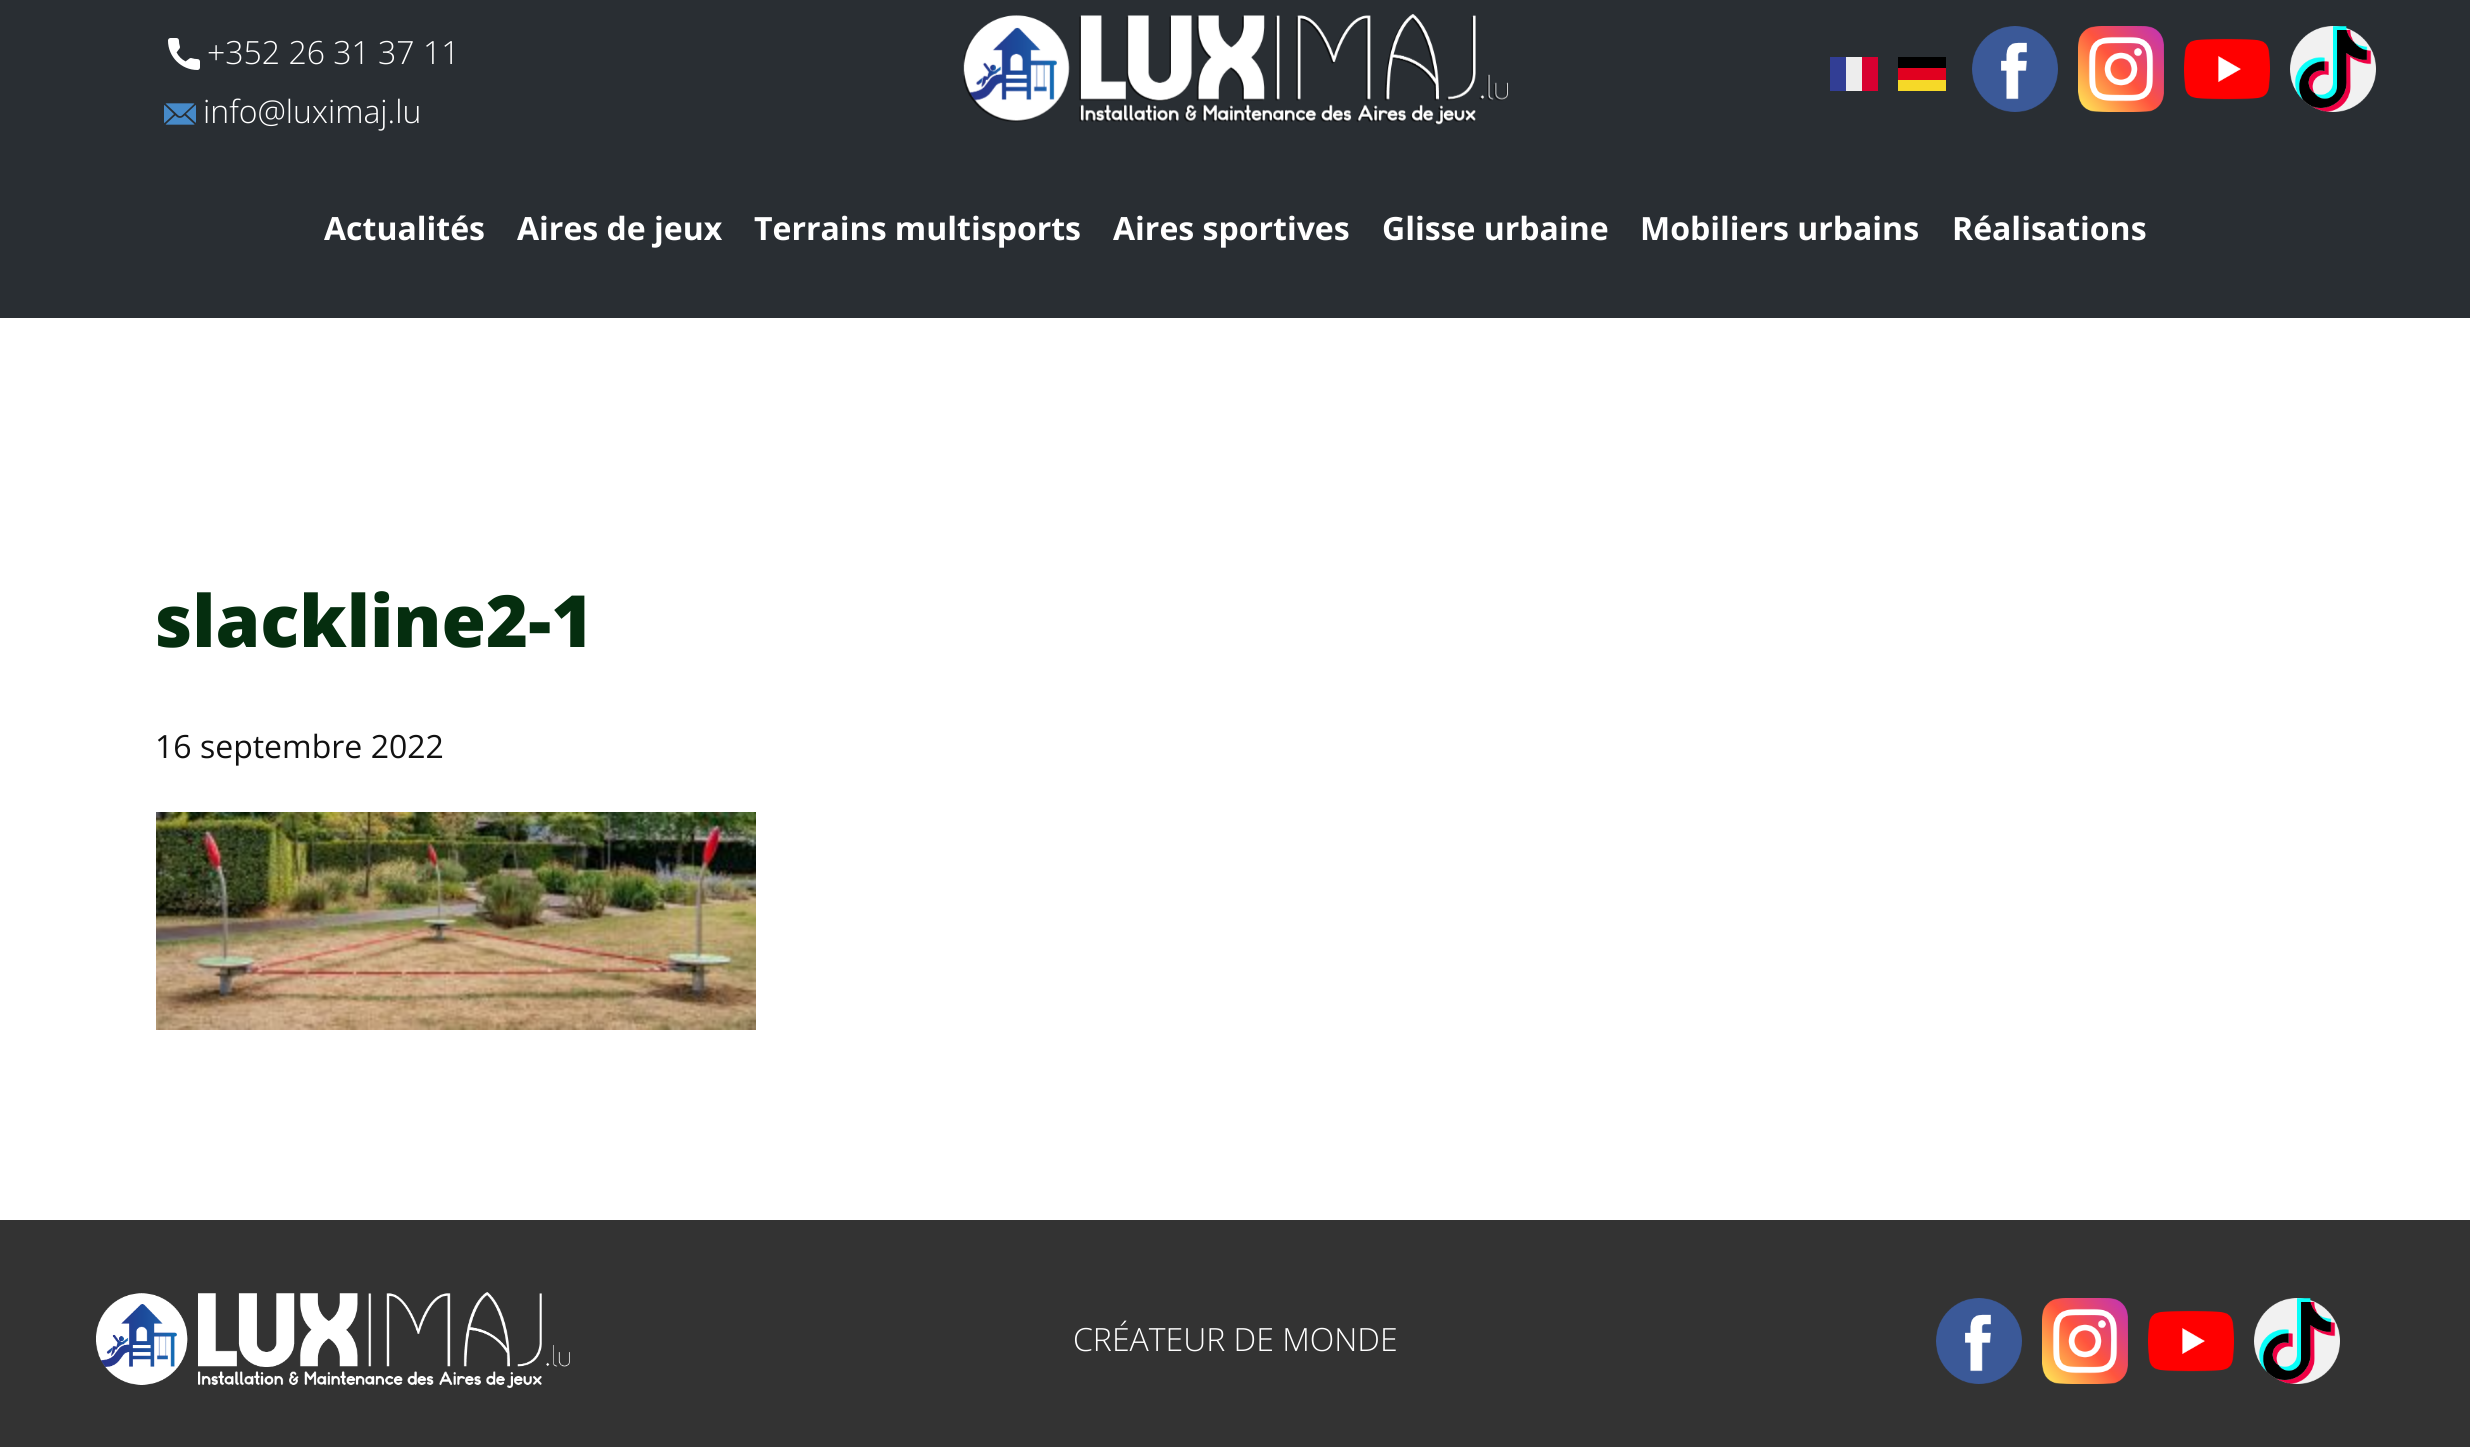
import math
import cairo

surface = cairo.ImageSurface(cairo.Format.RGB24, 2470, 1447)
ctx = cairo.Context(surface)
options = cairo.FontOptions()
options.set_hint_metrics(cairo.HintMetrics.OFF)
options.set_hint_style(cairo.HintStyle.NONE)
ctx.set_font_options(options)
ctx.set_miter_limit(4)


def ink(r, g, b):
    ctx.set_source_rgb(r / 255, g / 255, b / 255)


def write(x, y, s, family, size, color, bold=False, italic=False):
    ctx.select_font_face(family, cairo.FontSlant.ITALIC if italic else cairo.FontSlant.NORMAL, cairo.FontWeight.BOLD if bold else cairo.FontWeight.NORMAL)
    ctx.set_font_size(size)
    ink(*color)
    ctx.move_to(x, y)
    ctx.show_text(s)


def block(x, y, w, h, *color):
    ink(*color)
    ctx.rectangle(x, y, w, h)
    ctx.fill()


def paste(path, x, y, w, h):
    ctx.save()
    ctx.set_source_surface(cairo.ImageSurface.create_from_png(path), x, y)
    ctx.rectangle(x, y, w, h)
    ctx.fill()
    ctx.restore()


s1 = dict(family="Open Sans Light", size=32, color=(255, 255, 255))
s2 = dict(family="Open Sans", size=32, color=(255, 255, 255), bold=True)
s3 = dict(family="Open Sans ExtraBold", size=72, color=(5, 46, 15))
s4 = dict(family="Open Sans", size=32, color=(17, 17, 17))

ink(255, 255, 255)
ctx.paint()
block(0, 0, 2470, 318, 41, 46, 51)
paste("pic1.png", 168, 38, 32, 32)
write(207, 64, "+352 26 31 37 11", **s1)
paste("pic2.png", 963, 14, 545, 111)
paste("pic3.png", 1972, 26, 86, 86)
paste("pic4.png", 2078, 26, 86, 86)
paste("pic5.png", 2184, 38, 86, 62)
paste("pic6.png", 2290, 26, 86, 86)
block(1846, 57, 16, 34, 237, 237, 237)
block(1830, 57, 16, 34, 50, 62, 149)
block(1862, 57, 16, 34, 216, 0, 49)
block(1898, 57, 48, 11, 0, 0, 0)
block(1898, 68, 48, 12, 225, 0, 31)
block(1898, 80, 48, 11, 246, 217, 40)
paste("pic7.png", 164, 103, 32, 22)
write(203, 123, "info@luximaj.lu", **s1)
write(324, 240, "Actualités", **s2)
write(517, 240, "Aires de jeux", **s2)
write(754, 240, "Terrains multisports", **s2)
write(1113, 240, "Aires sportives", **s2)
write(1382, 240, "Glisse urbaine", **s2)
write(1640, 240, "Mobiliers urbains", **s2)
write(1952, 240, "Réalisations", **s2)
write(155, 647, "slackline2-1", **s3)
write(155, 758, "16 septembre 2022", **s4)
paste("pic8.png", 156, 812, 600, 218)
block(0, 1220, 2470, 227, 51, 51, 51)
paste("pic9.png", 96, 1292, 474, 96)
write(1073, 1351, "CRÉATEUR DE MONDE", **s1)
paste("pic10.png", 1936, 1298, 86, 86)
paste("pic11.png", 2042, 1298, 86, 86)
paste("pic12.png", 2148, 1310, 86, 62)
paste("pic13.png", 2254, 1298, 86, 86)
surface.write_to_png("screenshot.png")
